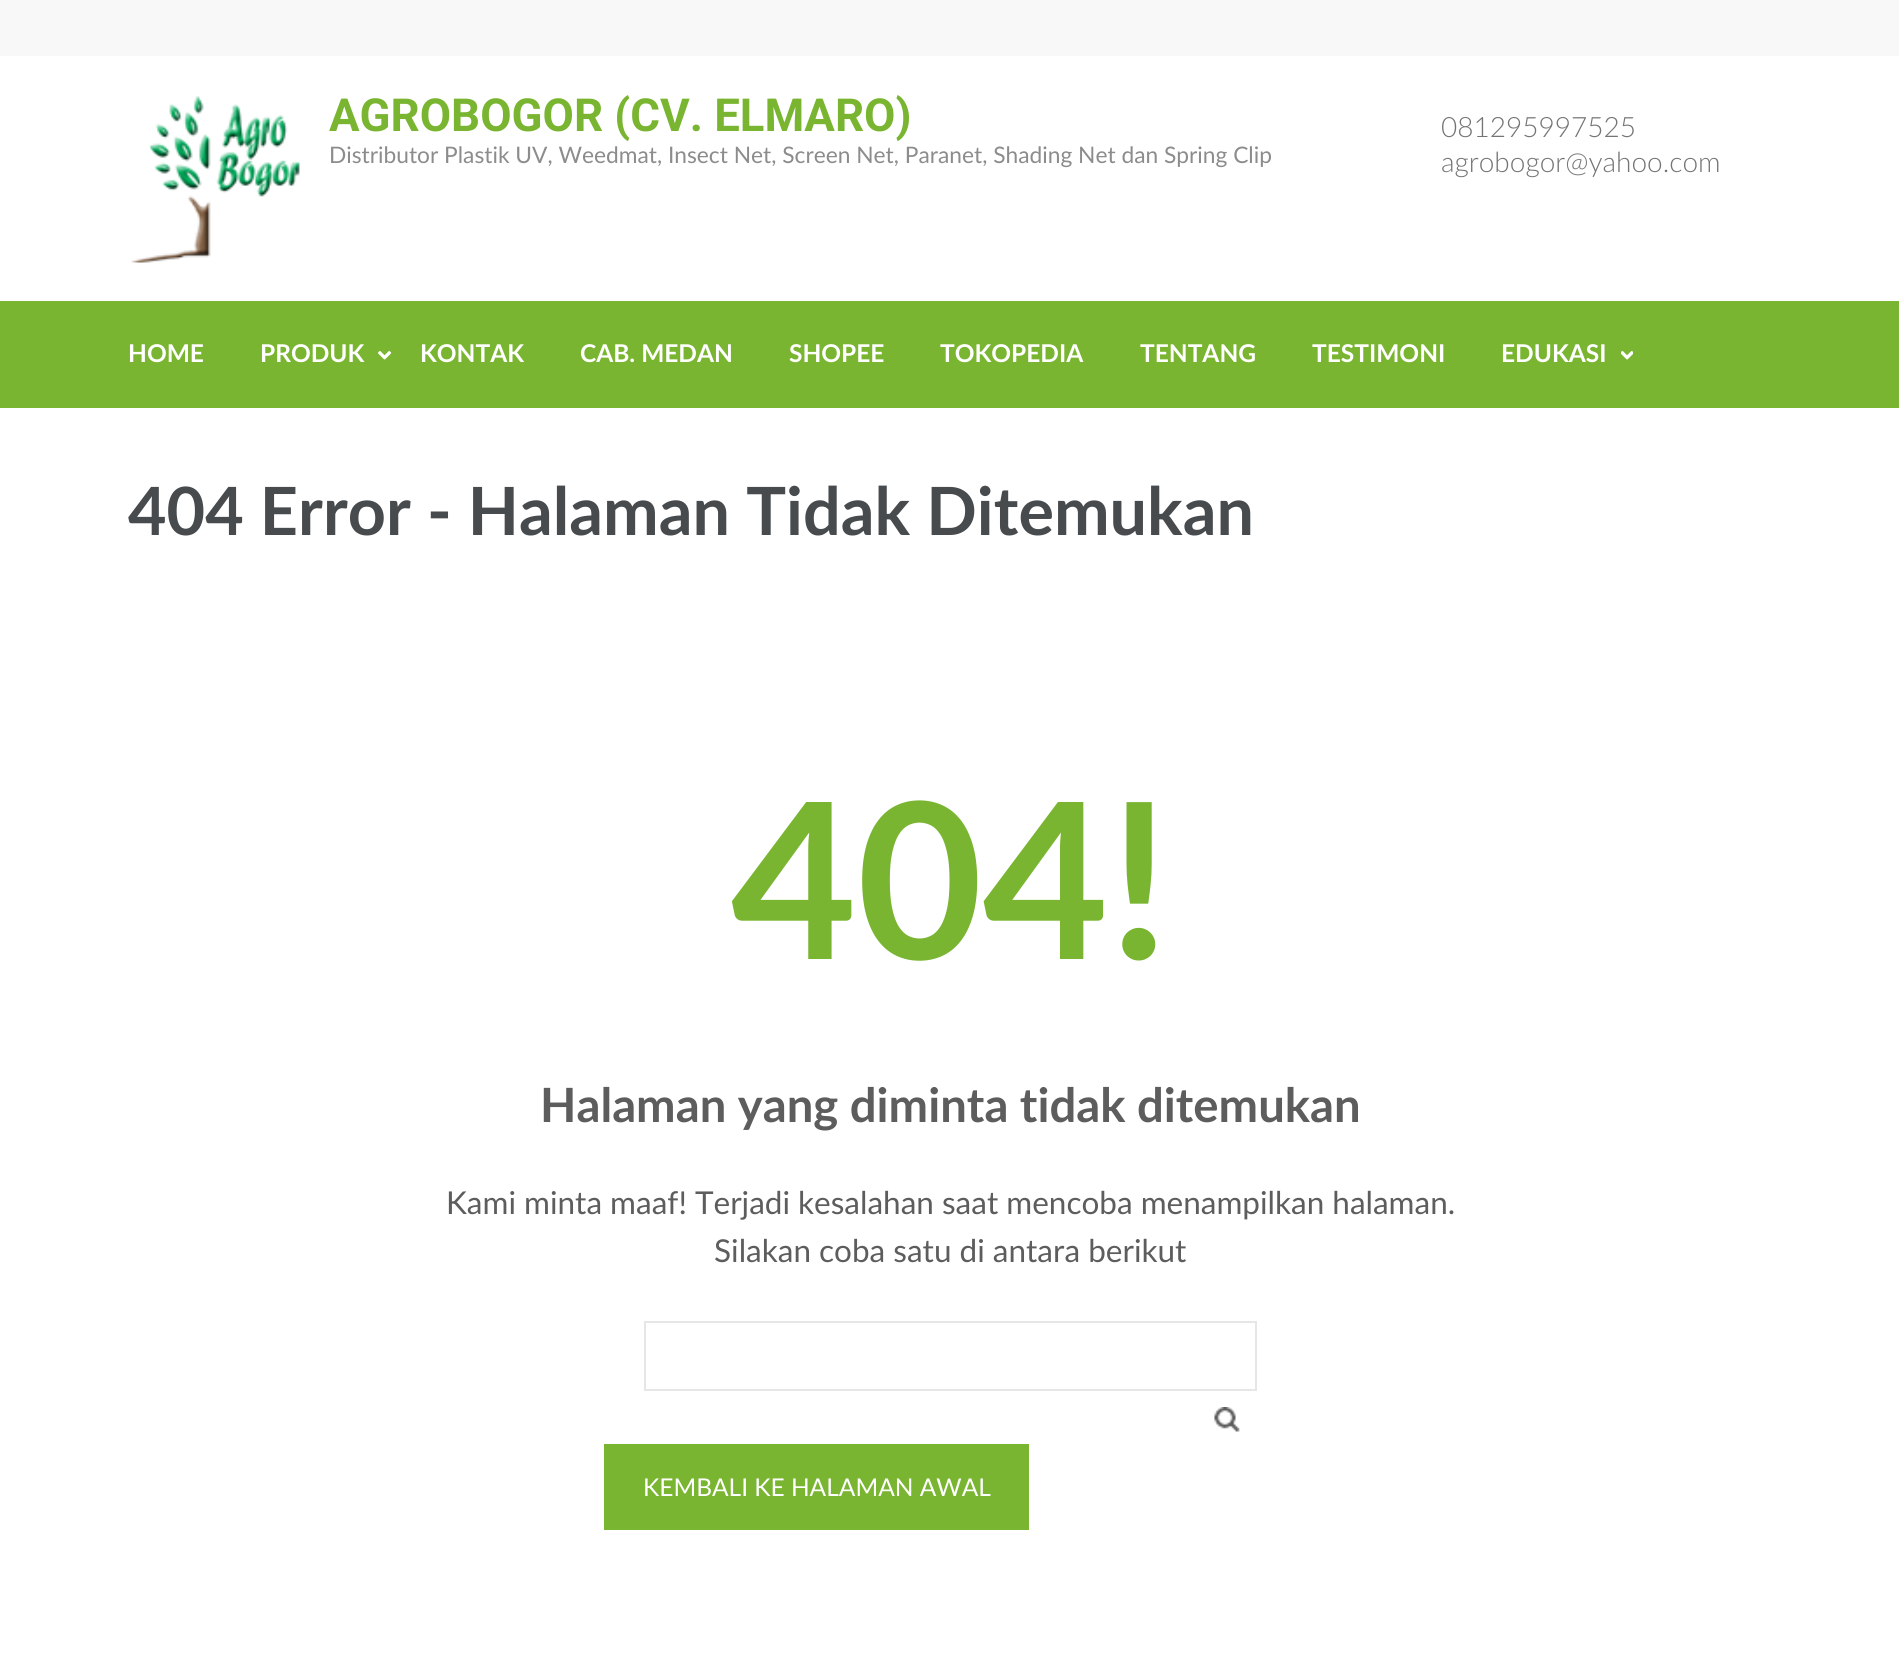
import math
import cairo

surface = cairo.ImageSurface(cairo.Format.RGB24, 1899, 1663)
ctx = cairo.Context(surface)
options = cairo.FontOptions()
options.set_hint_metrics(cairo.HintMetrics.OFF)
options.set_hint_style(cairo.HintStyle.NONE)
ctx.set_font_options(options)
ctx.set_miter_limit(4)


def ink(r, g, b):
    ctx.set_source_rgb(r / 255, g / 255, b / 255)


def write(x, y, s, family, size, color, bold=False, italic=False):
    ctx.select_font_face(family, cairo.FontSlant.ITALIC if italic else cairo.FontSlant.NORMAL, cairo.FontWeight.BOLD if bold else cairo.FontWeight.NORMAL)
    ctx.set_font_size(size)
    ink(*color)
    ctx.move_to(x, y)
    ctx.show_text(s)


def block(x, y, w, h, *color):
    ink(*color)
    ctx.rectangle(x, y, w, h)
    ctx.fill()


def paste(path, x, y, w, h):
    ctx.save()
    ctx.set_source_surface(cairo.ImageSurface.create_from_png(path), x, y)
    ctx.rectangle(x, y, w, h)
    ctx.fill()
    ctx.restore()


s1 = dict(family="Roboto", size=45.5, color=(121, 181, 48), bold=True)
s2 = dict(family="Lato", size=22.75, color=(140, 140, 140))
s3 = dict(family="Lato Light", size=28, color=(116, 116, 116))
s4 = dict(family="Lato", size=24.5, color=(255, 255, 255), bold=True)
s5 = dict(family="Lato", size=66.5, color=(71, 75, 78), bold=True)
s6 = dict(family="Lato", size=217, color=(121, 181, 48), bold=True)
s7 = dict(family="Lato", size=47.25, color=(93, 93, 93), bold=True)
s8 = dict(family="Lato", size=31.5, color=(93, 93, 93))
s9 = dict(family="Lato", size=24.5, color=(255, 255, 255))

ink(255, 255, 255)
ctx.paint()
block(0, 0, 1899, 56, 248, 248, 248)
paste("pic1.png", 131, 96, 169, 167)
write(329, 131, "AGROBOGOR (CV. ELMARO)", **s1)
write(329, 163, "Distributor Plastik UV, Weedmat, Insect Net, Screen Net, Paranet, Shading Net dan Spring Clip", **s2)
write(1441, 137, "081295997525", **s3)
write(1441, 172, "agrobogor@yahoo.com", **s3)
block(0, 301, 1899, 107, 121, 181, 48)
write(128, 362, "HOME", **s4)
write(260, 362, "PRODUK", **s4)
paste("pic2.png", 378, 351, 14, 9)
write(420, 362, "KONTAK", **s4)
write(580, 362, "CAB. MEDAN", **s4)
write(789, 362, "SHOPEE", **s4)
write(940, 362, "TOKOPEDIA", **s4)
write(1140, 362, "TENTANG", **s4)
write(1312, 362, "TESTIMONI", **s4)
write(1501, 362, "EDUKASI", **s4)
paste("pic3.png", 1621, 351, 12, 9)
write(128, 535, "404 Error - Halaman Tidak Ditemukan", **s5)
write(731, 959, "404!", **s6)
write(540, 1122, "Halaman yang diminta tidak ditemukan", **s7)
write(446, 1214, "Kami minta maaf! Terjadi kesalahan saat mencoba menampilkan halaman.", **s8)
write(714, 1262, "Silakan coba satu di antara berikut", **s8)
ctx.rectangle(645, 1322, 611, 68)
ink(230, 230, 230)
ctx.stroke()
paste("pic4.png", 1214, 1407, 26, 25)
block(604, 1444, 425, 86, 121, 181, 48)
write(643, 1496, "KEMBALI KE HALAMAN AWAL", **s9)
surface.write_to_png("screenshot.png")
